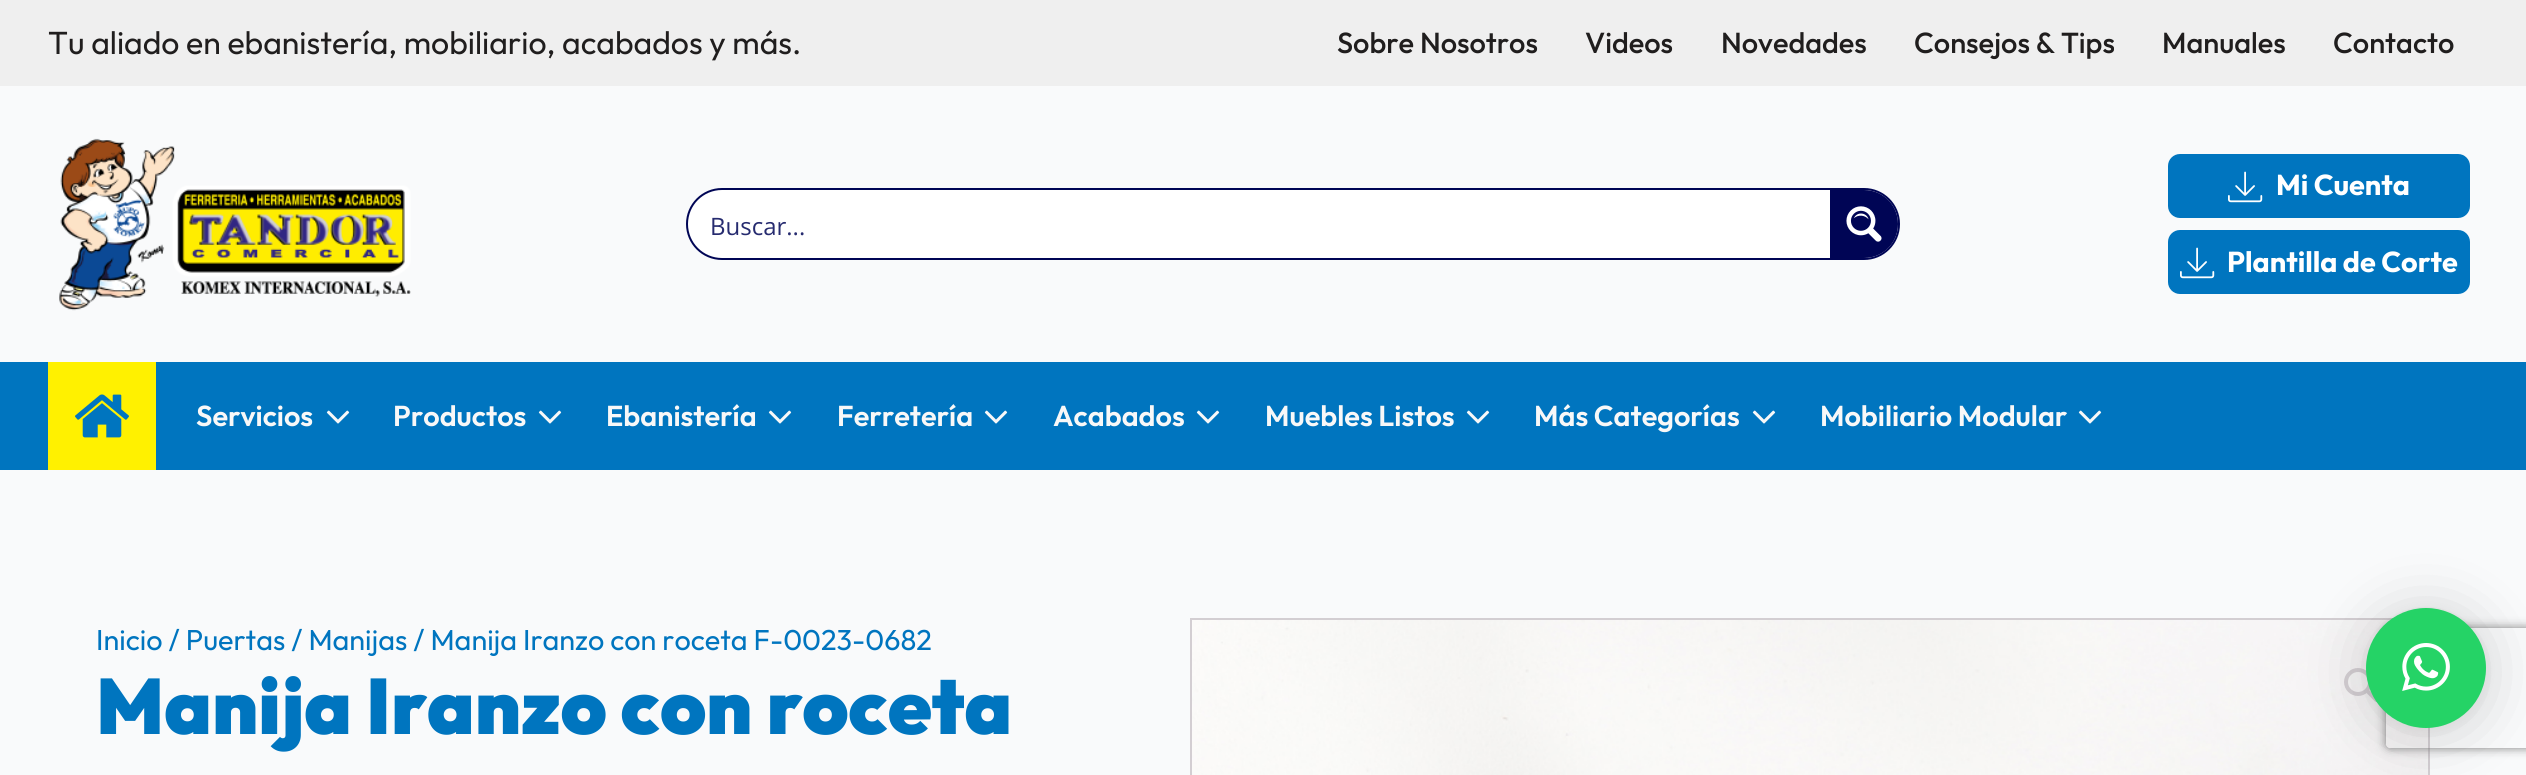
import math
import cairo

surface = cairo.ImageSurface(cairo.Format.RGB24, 2526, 775)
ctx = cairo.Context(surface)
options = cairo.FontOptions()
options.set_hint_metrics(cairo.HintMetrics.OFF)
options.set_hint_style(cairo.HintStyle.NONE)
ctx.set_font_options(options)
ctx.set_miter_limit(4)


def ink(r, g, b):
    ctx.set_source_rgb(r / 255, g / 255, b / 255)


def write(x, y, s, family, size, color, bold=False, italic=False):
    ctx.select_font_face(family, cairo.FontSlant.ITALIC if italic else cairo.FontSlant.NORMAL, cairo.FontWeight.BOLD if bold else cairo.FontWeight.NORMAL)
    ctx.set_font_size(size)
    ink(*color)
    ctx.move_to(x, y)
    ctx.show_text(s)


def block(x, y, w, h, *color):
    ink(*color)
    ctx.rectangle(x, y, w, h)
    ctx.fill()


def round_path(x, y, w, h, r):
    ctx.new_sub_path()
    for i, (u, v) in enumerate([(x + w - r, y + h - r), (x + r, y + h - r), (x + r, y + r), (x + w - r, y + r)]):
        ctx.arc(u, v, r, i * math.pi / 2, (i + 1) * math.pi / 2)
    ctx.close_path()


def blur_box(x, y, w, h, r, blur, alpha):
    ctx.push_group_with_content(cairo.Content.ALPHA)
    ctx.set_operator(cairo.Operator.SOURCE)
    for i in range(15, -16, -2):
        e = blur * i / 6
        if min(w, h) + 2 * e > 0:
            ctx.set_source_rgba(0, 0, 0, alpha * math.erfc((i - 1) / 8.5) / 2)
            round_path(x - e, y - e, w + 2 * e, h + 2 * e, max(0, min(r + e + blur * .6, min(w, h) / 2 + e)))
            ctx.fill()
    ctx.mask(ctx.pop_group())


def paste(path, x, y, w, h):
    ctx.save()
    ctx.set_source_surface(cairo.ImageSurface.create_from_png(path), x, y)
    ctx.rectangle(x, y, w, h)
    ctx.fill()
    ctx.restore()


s1 = dict(family="Outfit", size=32, color=(32, 30, 30))
s2 = dict(family="Outfit Medium", size=29, color=(32, 30, 30))
s3 = dict(family="Open Sans", size=24, color=(38, 43, 111))
s4 = dict(family="Outfit", size=28.8, color=(255, 255, 255), bold=True)
s5 = dict(family="Outfit SemiBold", size=28.8, color=(248, 248, 248))
s6 = dict(family="Outfit", size=28.8, color=(0, 117, 191))
s7 = dict(family="Outfit Black", size=78.1, color=(0, 117, 191))

ink(249, 250, 251)
ctx.paint()
block(0, 0, 2526, 86, 239, 239, 239)
write(48, 54, "Tu aliado en ebanistería, mobiliario, acabados y más.", **s1)
write(1337, 53, "Sobre Nosotros", **s2)
write(1585, 53, "Videos", **s2)
write(1721, 53, "Novedades", **s2)
write(1914, 53, "Consejos & Tips", **s2)
write(2162, 53, "Manuales", **s2)
write(2333, 53, "Contacto", **s2)
paste("pic1.png", 59, 138, 352, 173)
ink(255, 255, 255)
round_path(687, 189, 1212, 70, 35)
ctx.fill_preserve()
ink(0, 5, 85)
ctx.stroke()
write(710, 235, "Buscar...", **s3)
ink(0, 5, 85)
ctx.new_path()
ctx.move_to(1830, 190)
ctx.line_to(1864, 190)
ctx.curve_to(1883, 190, 1898, 205, 1898, 224)
ctx.curve_to(1898, 243, 1883, 258, 1864, 258)
ctx.line_to(1830, 258)
ctx.close_path()
ctx.fill()
paste("pic2.png", 1846, 206, 36, 36)
ink(0, 117, 191)
round_path(2168, 154, 302, 64, 12)
ctx.fill()
paste("pic3.png", 2228, 171, 35, 32)
write(2276, 195, "Mi Cuenta", **s4)
ink(0, 117, 191)
round_path(2168, 230, 302, 64, 12)
ctx.fill()
paste("pic3.png", 2180, 247, 35, 32)
write(2227, 272, "Plantilla de Corte", **s4)
block(0, 362, 2526, 108, 0, 117, 191)
block(48, 362, 108, 108, 255, 241, 0)
paste("pic4.png", 75, 394, 54, 44)
write(196, 426, "Servicios", **s5)
paste("pic5.png", 326, 410, 24, 14)
write(393, 426, "Productos", **s5)
paste("pic5.png", 538, 410, 24, 14)
write(606, 426, "Ebanistería", **s5)
paste("pic5.png", 768, 410, 24, 14)
write(837, 426, "Ferretería", **s5)
paste("pic5.png", 984, 410, 24, 14)
write(1053, 426, "Acabados", **s5)
paste("pic5.png", 1196, 410, 24, 14)
write(1265, 426, "Muebles Listos", **s5)
paste("pic5.png", 1466, 410, 24, 14)
write(1534, 426, "Más Categorías", **s5)
paste("pic5.png", 1752, 410, 24, 14)
write(1820, 426, "Mobiliario Modular", **s5)
paste("pic5.png", 2078, 410, 24, 14)
ctx.rectangle(1191, 619, 1238, 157)
ink(211, 206, 210)
ctx.stroke()
paste("pic7.png", 1192, 620, 1236, 155)
ctx.save()
ctx.set_fill_rule(cairo.FillRule.EVEN_ODD)
ctx.new_path()
ctx.move_to(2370, 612)
ctx.line_to(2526, 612)
ctx.line_to(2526, 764)
ctx.line_to(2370, 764)
ctx.close_path()
ctx.move_to(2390, 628)
ctx.line_to(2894, 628)
ctx.curve_to(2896, 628, 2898, 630, 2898, 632)
ctx.line_to(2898, 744)
ctx.curve_to(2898, 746, 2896, 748, 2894, 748)
ctx.line_to(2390, 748)
ctx.curve_to(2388, 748, 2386, 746, 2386, 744)
ctx.line_to(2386, 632)
ctx.curve_to(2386, 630, 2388, 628, 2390, 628)
ctx.close_path()
ctx.clip()
ink(128, 128, 128)
blur_box(2386, 628, 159, 120, 4, 5, 1)
ctx.restore()
ctx.arc(2358, 682, 12, 0, 2 * math.pi)
ctx.set_line_width(4)
ctx.stroke()
ctx.new_path()
ctx.move_to(2366.5, 690)
ctx.curve_to(2367, 689.5, 2368.5, 689.5, 2369, 690)
ctx.line_to(2377.5, 698.5)
ctx.curve_to(2378.5, 699.5, 2378.5, 700.5, 2377.5, 701.5)
ctx.curve_to(2377, 702, 2375.5, 702, 2375, 701.5)
ctx.line_to(2366.5, 693)
ctx.curve_to(2365.5, 692, 2365.5, 691, 2366.5, 690)
ctx.close_path()
ctx.fill()
ink(0, 0, 0)
blur_box(2366, 612, 120, 120, 60, 32, 0.16)
blur_box(2366, 610, 120, 120, 60, 6, 0.06)
ink(37, 211, 102)
ctx.arc(2426, 668, 60, 0, 2 * math.pi)
ctx.fill()
paste("pic6.png", 2402, 643, 48, 48)
write(96, 650, "Inicio / Puertas / Manijas / Manija Iranzo con roceta F-0023-0682", **s6)
write(96, 734, "Manija Iranzo con roceta", **s7)
surface.write_to_png("screenshot.png")
